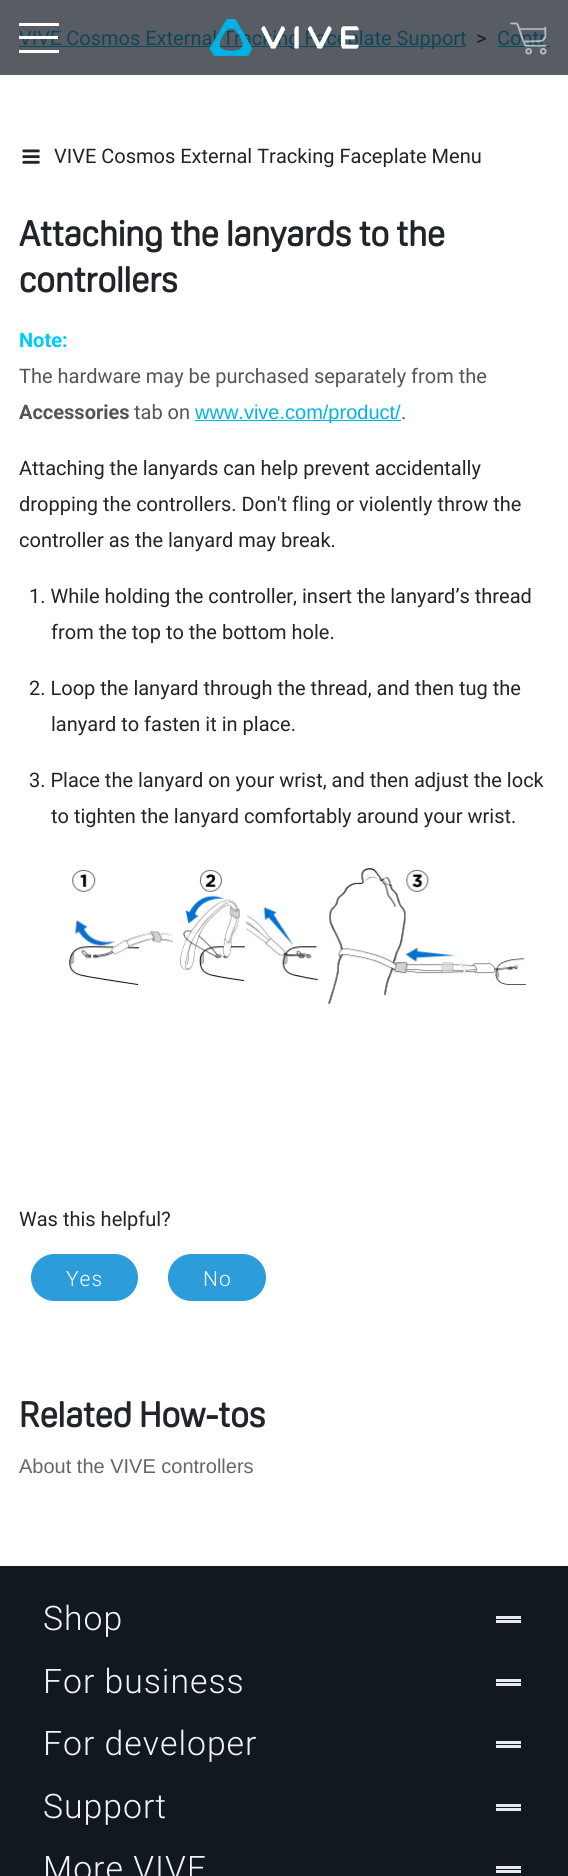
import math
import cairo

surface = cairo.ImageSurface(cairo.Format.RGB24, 568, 1876)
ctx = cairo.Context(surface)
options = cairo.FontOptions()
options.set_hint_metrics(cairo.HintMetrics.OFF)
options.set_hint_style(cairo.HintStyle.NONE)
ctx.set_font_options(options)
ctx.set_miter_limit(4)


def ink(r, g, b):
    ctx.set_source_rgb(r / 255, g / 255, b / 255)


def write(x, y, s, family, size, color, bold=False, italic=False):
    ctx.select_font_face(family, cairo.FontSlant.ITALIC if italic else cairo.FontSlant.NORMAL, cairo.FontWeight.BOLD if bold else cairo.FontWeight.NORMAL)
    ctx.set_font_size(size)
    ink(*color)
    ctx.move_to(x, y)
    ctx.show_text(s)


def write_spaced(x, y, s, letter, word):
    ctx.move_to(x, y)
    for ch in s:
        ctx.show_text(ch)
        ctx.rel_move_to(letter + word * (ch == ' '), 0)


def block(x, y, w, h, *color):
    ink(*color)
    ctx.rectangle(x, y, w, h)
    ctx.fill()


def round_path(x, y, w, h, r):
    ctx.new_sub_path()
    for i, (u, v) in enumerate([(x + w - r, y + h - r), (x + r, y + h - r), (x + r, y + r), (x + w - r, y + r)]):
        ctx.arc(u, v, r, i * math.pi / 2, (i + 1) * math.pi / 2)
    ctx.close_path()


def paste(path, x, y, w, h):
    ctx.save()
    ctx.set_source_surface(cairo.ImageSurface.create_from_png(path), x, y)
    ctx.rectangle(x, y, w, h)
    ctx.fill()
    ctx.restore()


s1 = dict(family="Roboto", size=20, color=(12, 71, 90))
s2 = dict(family="Roboto", size=20, color=(22, 28, 35))
s3 = dict(family="Roboto", size=20, color=(33, 37, 41))
s4 = dict(family="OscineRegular", size=35, color=(33, 37, 41), bold=True)
s5 = dict(family="Roboto", size=20, color=(0, 201, 251), bold=True)
s6 = dict(family="Roboto", size=20, color=(85, 85, 85))
s7 = dict(family="Roboto", size=20, color=(85, 85, 85), bold=True)
s8 = dict(family="Liberation Sans", size=20, color=(0, 181, 226))
s9 = dict(family="Liberation Sans", size=20, color=(102, 102, 102))

ink(255, 255, 255)
ctx.paint()
block(0, 0, 568, 75, 88, 93, 99)
block(19, 46, 447, 1, 12, 71, 90)
write(19, 45, "VIVE Cosmos External Tracking Faceplate Support", **s1)
block(19, 36, 39, 3, 255, 255, 255)
block(19, 23, 40, 3, 255, 255, 255)
block(19, 50, 40, 3, 255, 255, 255)
paste("pic1.png", 210, 19, 149, 37)
write(497, 45, "Contr", **s1)
block(498, 46, 52, 1, 12, 71, 90)
paste("pic2.png", 510, 22, 37, 33)
write(476, 45, ">", **s2)
paste("pic3.png", 22, 149, 18, 15)
write(54, 163, "VIVE Cosmos External Tracking Faceplate Menu", **s3)
write(19, 246, "Attaching the lanyards to the", **s4)
write(19, 292, "controllers", **s4)
write(19, 347, "Note:", **s5)
write(19, 383, "The hardware may be purchased separately from the", **s6)
write(19, 419, "Accessories", **s7)
write(134, 419, "tab on", **s6)
block(195, 420, 206, 1, 0, 181, 226)
write(195, 419, "www.vive.com/product/", **s8)
write(401, 419, ".", **s6)
write(19, 475, "Attaching the lanyards can help prevent accidentally", **s3)
write(19, 511, "dropping the controllers. Don't fling or violently throw the", **s3)
write(19, 547, "controller as the lanyard may break.", **s3)
write(29, 603, "1. While holding the controller, insert the lanyard’s thread", **s3)
write(51, 639, "from the top to the bottom hole.", **s3)
write(29, 695, "2. Loop the lanyard through the thread, and then tug the", **s3)
write(51, 731, "lanyard to fasten it in place.", **s3)
write(29, 787, "3. Place the lanyard on your wrist, and then adjust the lock", **s3)
write(51, 823, "to tighten the lanyard comfortably around your wrist.", **s3)
paste("pic4.png", 69, 868, 458, 136)
write(19, 1226, "Was this helpful?", **s3)
ink(44, 156, 219)
round_path(31.5, 1254.5, 106, 46, 23)
ctx.fill_preserve()
ctx.set_line_width(1)
ctx.stroke()
ctx.select_font_face("Roboto Light")
ctx.set_font_size(21)
ink(255, 255, 255)
write_spaced(66, 1286, "Yes", 1, 0)
ink(44, 156, 219)
round_path(168.5, 1254.5, 97, 46, 23)
ctx.fill_preserve()
ctx.stroke()
ink(255, 255, 255)
write_spaced(203, 1286, "No", 1, 0)
write(19, 1427, "Related How-tos", **s4)
write(19, 1473, "About the VIVE controllers", **s9)
block(0, 1566, 568, 310, 17, 24, 32)
ctx.select_font_face("Roboto Light")
ctx.set_font_size(33.75)
ink(242, 244, 248)
write_spaced(43, 1630, "Shop", 1, 0)
block(496, 1616, 25, 3, 231, 234, 240)
block(496, 1620, 25, 3, 231, 234, 240)
ink(242, 244, 248)
write_spaced(43, 1693, "For business", 1, 0)
block(496, 1679, 25, 3, 231, 234, 240)
block(496, 1683, 25, 3, 231, 234, 240)
ink(242, 244, 248)
write_spaced(43, 1755, "For developer", 1, 0)
block(496, 1741, 25, 3, 231, 234, 240)
block(496, 1745, 25, 3, 231, 234, 240)
ink(242, 244, 248)
write_spaced(43, 1818, "Support", 1, 0)
block(496, 1804, 25, 3, 231, 234, 240)
block(496, 1808, 25, 3, 231, 234, 240)
ink(242, 244, 248)
write_spaced(43, 1880, "More VIVE", 1, 0)
block(496, 1866, 25, 3, 231, 234, 240)
block(496, 1870, 25, 3, 231, 234, 240)
surface.write_to_png("screenshot.png")
